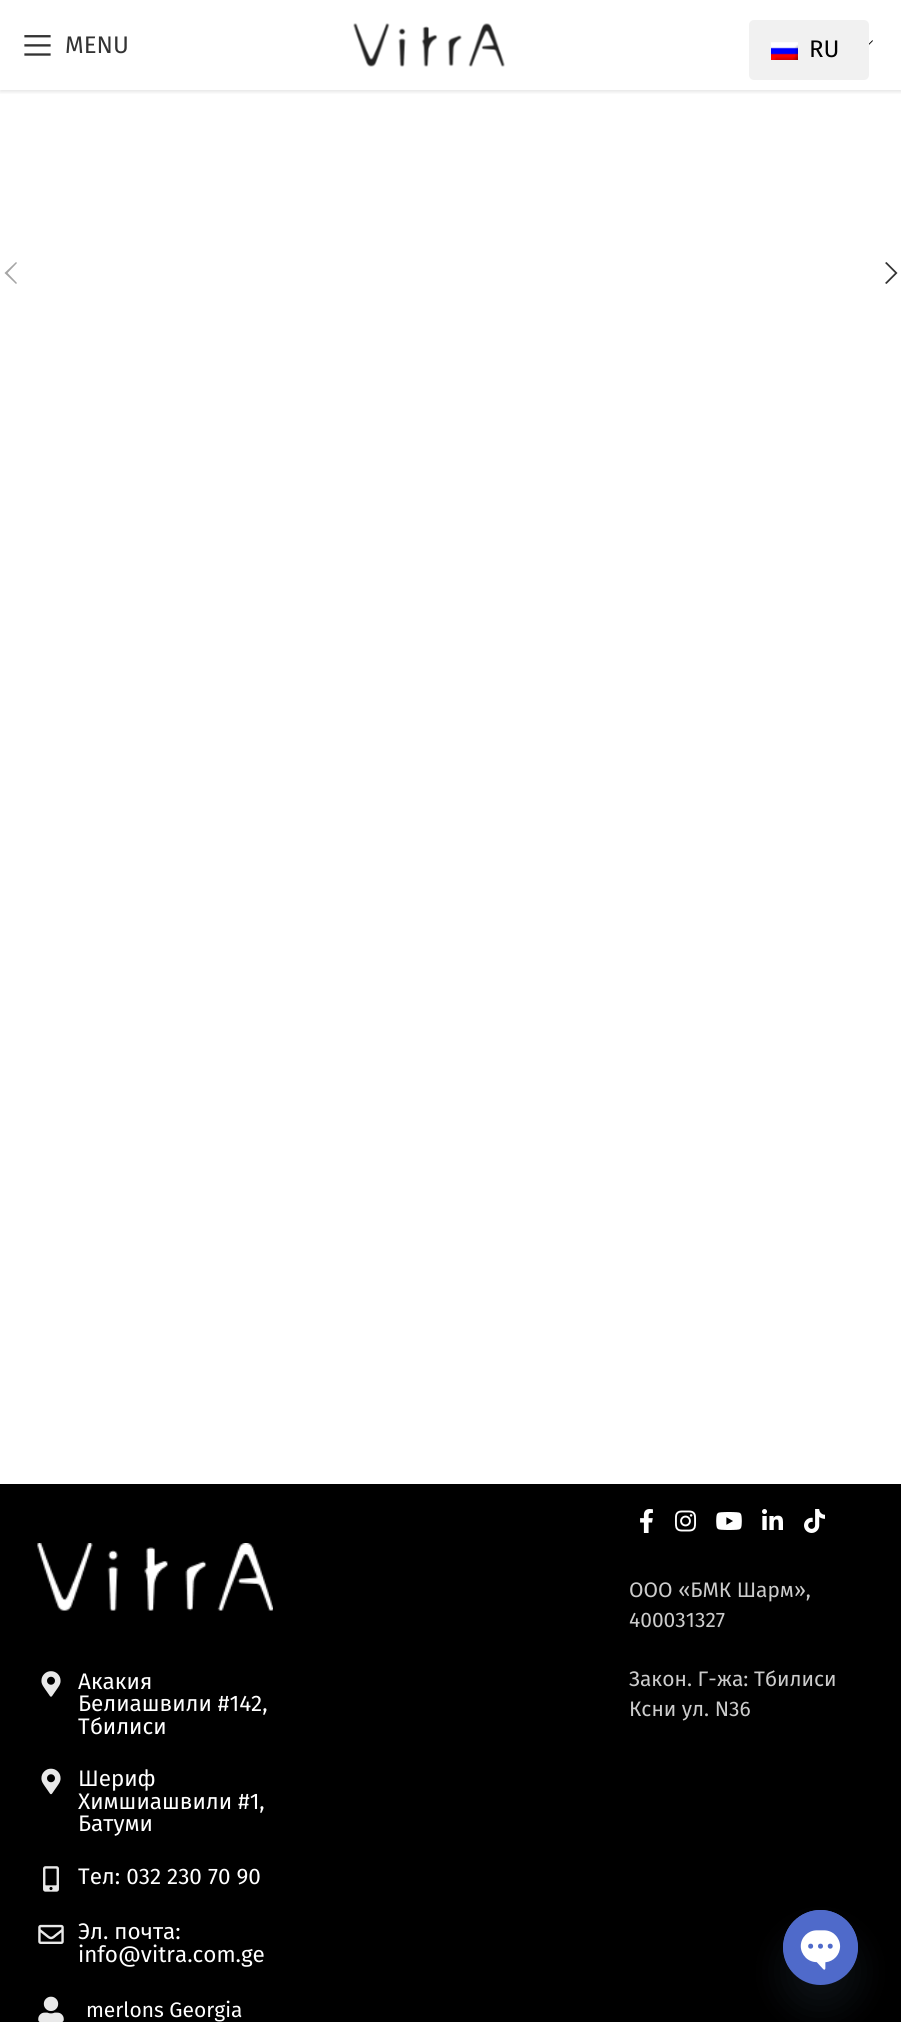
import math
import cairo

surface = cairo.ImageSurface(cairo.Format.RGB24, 901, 2022)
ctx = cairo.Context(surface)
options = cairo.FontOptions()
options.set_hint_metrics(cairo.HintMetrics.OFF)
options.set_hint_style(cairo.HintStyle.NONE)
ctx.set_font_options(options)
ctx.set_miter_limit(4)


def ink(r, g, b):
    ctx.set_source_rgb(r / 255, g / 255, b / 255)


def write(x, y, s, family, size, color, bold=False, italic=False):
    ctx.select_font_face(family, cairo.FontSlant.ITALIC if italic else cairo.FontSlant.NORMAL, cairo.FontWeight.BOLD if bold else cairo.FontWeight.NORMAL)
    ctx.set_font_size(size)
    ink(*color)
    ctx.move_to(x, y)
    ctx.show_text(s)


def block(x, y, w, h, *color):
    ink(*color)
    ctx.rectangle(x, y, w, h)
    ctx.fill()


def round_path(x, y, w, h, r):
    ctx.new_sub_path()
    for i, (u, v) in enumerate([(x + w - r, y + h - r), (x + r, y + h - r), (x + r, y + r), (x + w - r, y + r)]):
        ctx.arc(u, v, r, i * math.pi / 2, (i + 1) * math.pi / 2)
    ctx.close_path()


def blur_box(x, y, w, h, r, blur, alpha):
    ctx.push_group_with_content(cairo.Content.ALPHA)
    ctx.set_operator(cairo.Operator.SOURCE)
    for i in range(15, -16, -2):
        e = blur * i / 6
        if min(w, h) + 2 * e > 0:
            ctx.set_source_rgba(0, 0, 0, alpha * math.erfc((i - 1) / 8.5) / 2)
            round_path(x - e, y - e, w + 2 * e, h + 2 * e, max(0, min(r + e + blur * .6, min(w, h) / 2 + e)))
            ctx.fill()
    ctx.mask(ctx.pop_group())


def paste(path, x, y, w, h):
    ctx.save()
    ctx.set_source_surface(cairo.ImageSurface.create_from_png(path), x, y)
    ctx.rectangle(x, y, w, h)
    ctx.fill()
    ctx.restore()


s1 = dict(family="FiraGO", size=24, color=(51, 51, 51))
s2 = dict(family="FiraGO", size=24, color=(0, 0, 0))
s3 = dict(family="FiraGO", size=21, color=(204, 204, 204))
s4 = dict(family="FiraGO", size=22.5, color=(255, 255, 255))
s5 = dict(family="FiraGO", size=21, color=(255, 255, 255))

ink(255, 255, 255)
ctx.paint()
ctx.save()
ctx.rectangle(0, 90, 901, 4)
ctx.clip()
ink(0, 0, 0)
blur_box(0, 2, 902, 90, 0, 2, 0.1)
ctx.restore()
paste("pic1.png", 24, 35, 27, 21)
write(65, 53, "MENU", **s1)
paste("pic2.png", 353, 23, 152, 44)
paste("pic3.png", 869, 40, 4, 5)
ink(241, 241, 241)
round_path(749, 20, 120, 60, 5)
ctx.fill()
paste("pic4.png", 771, 42, 27, 18)
write(809, 57, "RU", **s2)
ink(165, 165, 165)
ctx.new_path()
ctx.move_to(17, 263)
ctx.line_to(16, 262)
ctx.line_to(4.5, 273)
ctx.line_to(16, 284)
ctx.line_to(17, 283)
ctx.line_to(7.5, 273)
ctx.close_path()
ctx.fill()
ink(51, 51, 51)
ctx.new_path()
ctx.move_to(885, 263)
ctx.line_to(895, 273)
ctx.line_to(885, 283)
ctx.line_to(886.5, 284)
ctx.line_to(897.5, 273)
ctx.line_to(886.5, 262)
ctx.close_path()
ctx.fill()
block(0, 1484, 901, 538, 0, 0, 0)
paste("pic5.png", 640, 1509, 13, 24)
paste("pic6.png", 675, 1510, 21, 22)
paste("pic7.png", 716, 1512, 26, 18)
paste("pic8.png", 762, 1509, 21, 21)
paste("pic9.png", 804, 1509, 21, 24)
write(629, 1597, "ООО «БМК Шарм»,", **s3)
write(629, 1627, "400031327", **s3)
write(629, 1686, "Закон. Г-жа: Тбилиси", **s3)
write(629, 1716, "Ксни ул. N36", **s3)
paste("pic10.png", 37, 1543, 236, 68)
paste("pic11.png", 41, 1671, 20, 26)
write(78, 1689, "Акакия", **s4)
write(78, 1711, "Белиашвили #142,", **s4)
write(78, 1734, "Тбилиси", **s4)
paste("pic12.png", 41, 1768, 20, 27)
write(78, 1786, "Шериф", **s4)
write(78, 1809, "Химшиашвили #1,", **s4)
write(78, 1831, "Батуми", **s4)
paste("pic13.png", 43, 1866, 16, 26)
write(78, 1884, "Тел: 032 230 70 90", **s4)
paste("pic14.png", 38, 1924, 26, 20)
write(78, 1939, "Эл. почта:", **s4)
write(78, 1962, "info@vitra.com.ge", **s4)
paste("pic15.png", 38, 1996, 26, 26)
write(86, 2017, "merlons Georgia", **s5)
ink(73, 104, 126)
blur_box(783, 1934, 75, 75, 37.5, 18, 0.16)
ink(79, 106, 202)
ctx.arc(820.5, 1947.5, 37.5, 0, 2 * math.pi)
ctx.fill()
paste("pic16.png", 783, 1910, 75, 60)
surface.write_to_png("screenshot.png")
